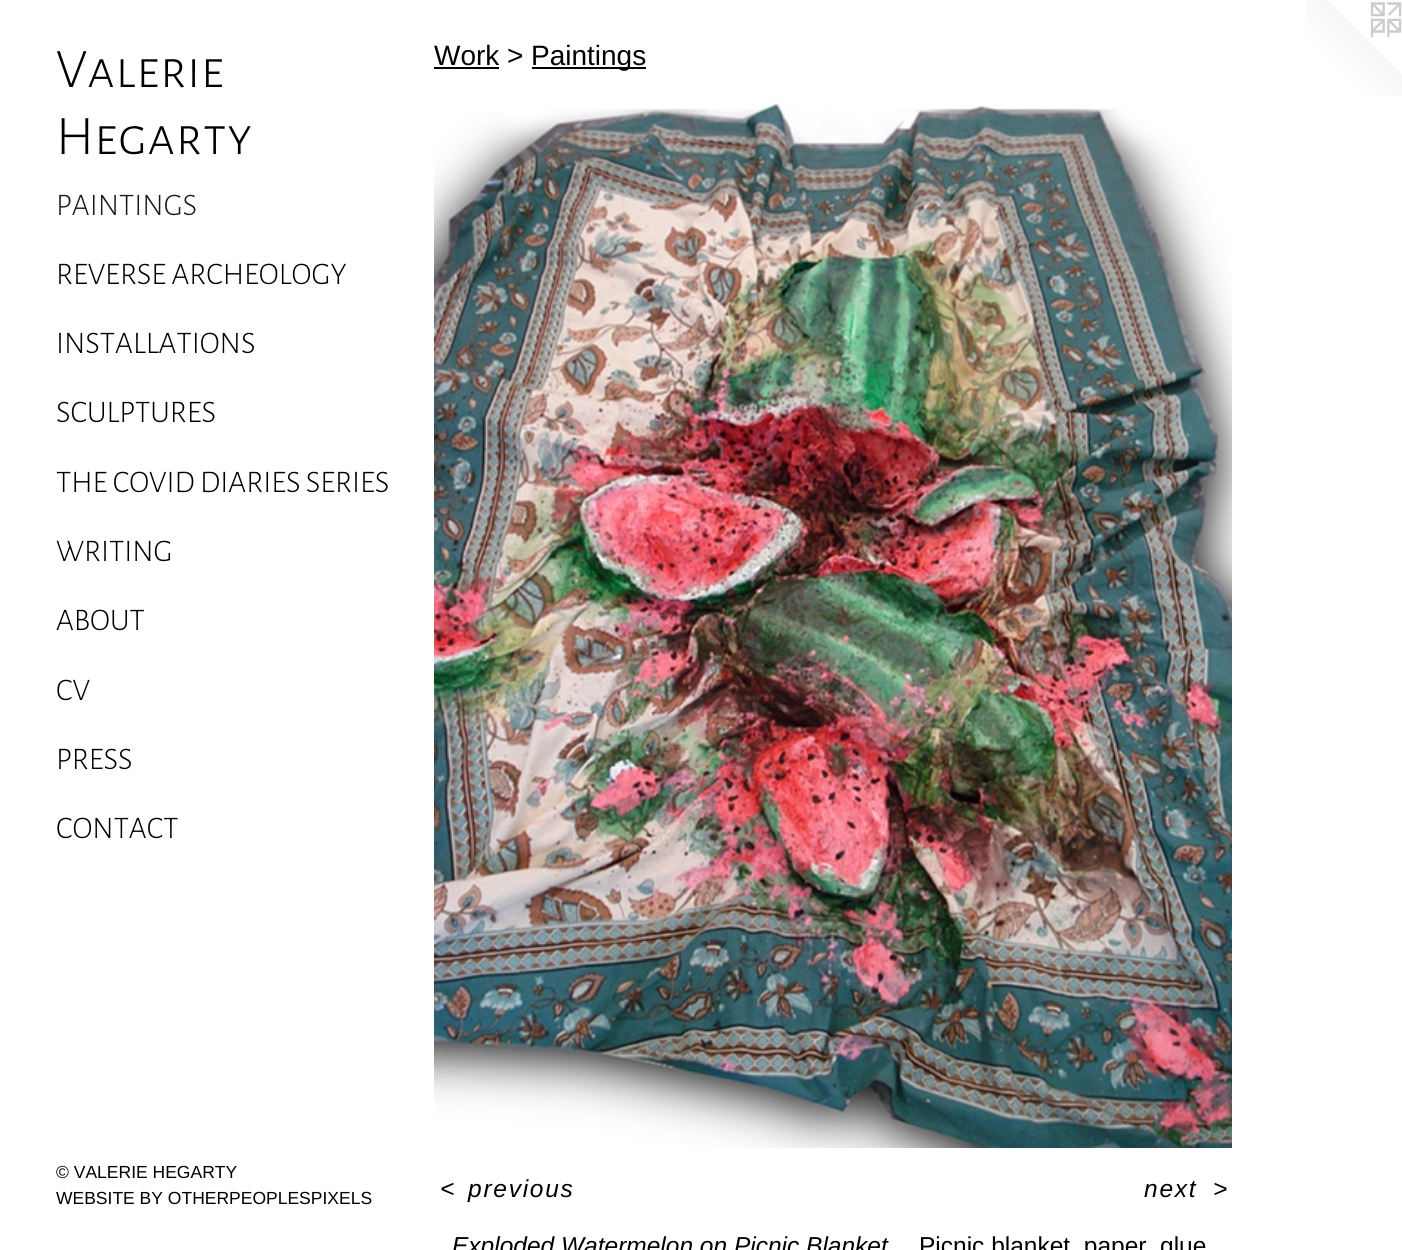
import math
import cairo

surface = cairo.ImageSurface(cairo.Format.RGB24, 1402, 1250)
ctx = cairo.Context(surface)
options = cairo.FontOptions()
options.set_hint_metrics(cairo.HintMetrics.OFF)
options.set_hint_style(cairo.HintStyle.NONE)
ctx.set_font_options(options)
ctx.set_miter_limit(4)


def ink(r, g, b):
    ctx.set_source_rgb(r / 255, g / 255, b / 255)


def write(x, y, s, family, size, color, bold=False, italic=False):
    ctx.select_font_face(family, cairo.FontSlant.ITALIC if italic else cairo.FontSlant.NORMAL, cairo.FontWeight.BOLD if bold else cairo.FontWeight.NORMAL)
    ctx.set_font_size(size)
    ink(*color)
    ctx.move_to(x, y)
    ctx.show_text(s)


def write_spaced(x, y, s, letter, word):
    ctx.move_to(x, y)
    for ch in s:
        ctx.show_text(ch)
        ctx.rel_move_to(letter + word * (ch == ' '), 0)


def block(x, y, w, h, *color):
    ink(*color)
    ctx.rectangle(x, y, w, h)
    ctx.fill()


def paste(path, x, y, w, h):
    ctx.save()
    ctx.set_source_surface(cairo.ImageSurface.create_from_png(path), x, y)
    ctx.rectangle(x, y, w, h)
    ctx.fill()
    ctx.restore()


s1 = dict(family="Alegreya Sans SC Light", size=56, color=(0, 0, 0))
s2 = dict(family="Alegreya Sans SC Light", size=31.5, color=(26, 26, 26))
s3 = dict(family="Alegreya Sans SC Light", size=31.5, color=(0, 0, 0))
s4 = dict(family="Liberation Sans", size=17.5, color=(0, 0, 0))
s5 = dict(family="Liberation Sans", size=28, color=(0, 0, 0))
s6 = dict(family="Liberation Sans", size=24.5, color=(0, 0, 0), italic=True)
s7 = dict(family="Liberation Sans", size=24.5, color=(0, 0, 0))

ink(255, 255, 255)
ctx.paint()
write(56, 87, "Valerie", **s1)
write(56, 154, "Hegarty", **s1)
write(56, 215, "PAINTINGS", **s2)
write(56, 284, "REVERSE ARCHEOLOGY", **s3)
write(56, 353, "INSTALLATIONS", **s3)
write(56, 422, "SCULPTURES", **s3)
write(56, 492, "THE COVID DIARIES SERIES", **s3)
write(56, 561, "WRITING", **s3)
write(56, 630, "ABOUT", **s3)
write(56, 700, "CV", **s3)
write(56, 769, "PRESS", **s3)
write(56, 838, "CONTACT", **s3)
write(56, 1178, "© VALERIE HEGARTY", **s4)
write(56, 1204, "WEBSITE BY OTHERPEOPLESPIXELS", **s4)
write(434, 65, "Work >", **s5)
block(434, 67, 65, 2, 0, 0, 0)
block(532, 67, 114, 2, 0, 0, 0)
write(531, 65, "Paintings", **s5)
paste("pic1.png", 434, 103, 798, 1045)
ctx.select_font_face("Liberation Sans", cairo.FontSlant.ITALIC)
ctx.set_font_size(24.5)
write_spaced(440, 1197, "<", 1.75, 0)
write_spaced(468, 1197, "previous", 1.75, 0)
write_spaced(1144, 1197, "next", 1.75, 0)
write_spaced(1213, 1197, ">", 1.75, 0)
write(452, 1254, "Exploded Watermelon on Picnic Blanket", **s6)
write(919, 1254, "Picnic blanket, paper, glue", **s7)
paste("pic2.png", 1306, 0, 96, 96)
surface.write_to_png("screenshot.png")
